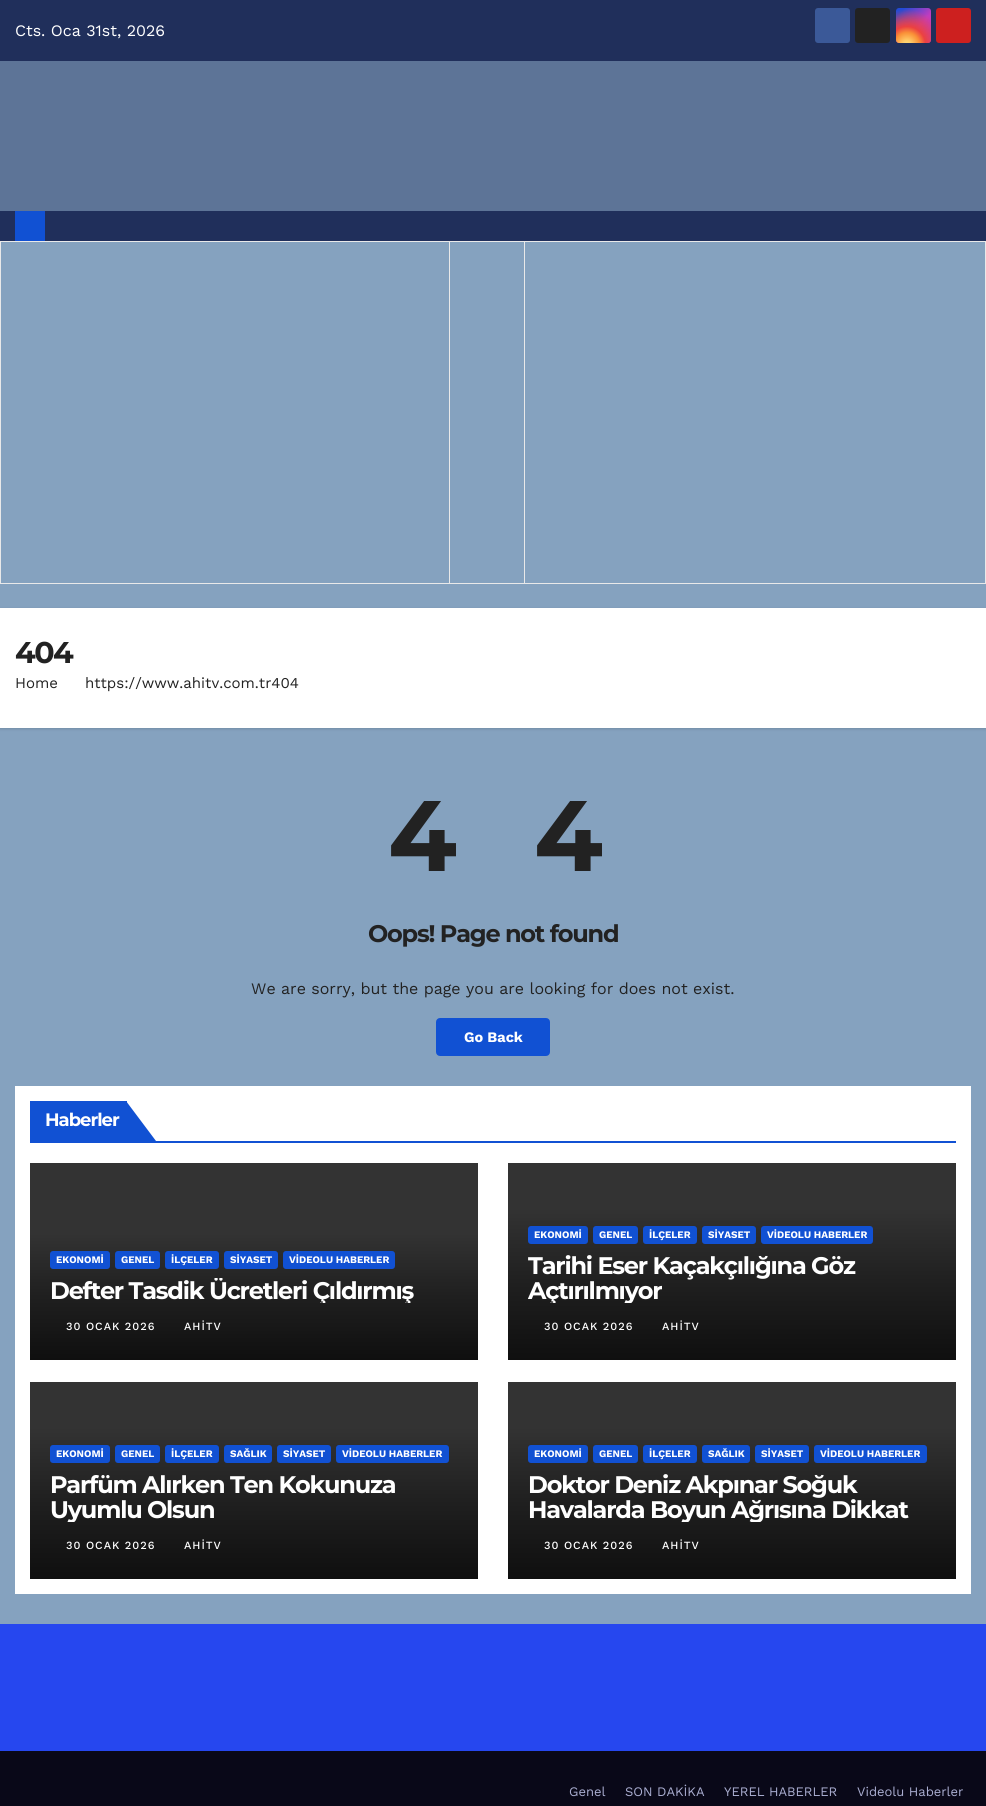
import math
import cairo

surface = cairo.ImageSurface(cairo.Format.RGB24, 986, 1806)
ctx = cairo.Context(surface)
options = cairo.FontOptions()
options.set_hint_metrics(cairo.HintMetrics.OFF)
options.set_hint_style(cairo.HintStyle.NONE)
ctx.set_font_options(options)
ctx.set_miter_limit(4)


def ink(r, g, b):
    ctx.set_source_rgb(r / 255, g / 255, b / 255)


def write(x, y, s, family, size, color, bold=False, italic=False):
    ctx.select_font_face(family, cairo.FontSlant.ITALIC if italic else cairo.FontSlant.NORMAL, cairo.FontWeight.BOLD if bold else cairo.FontWeight.NORMAL)
    ctx.set_font_size(size)
    ink(*color)
    ctx.move_to(x, y)
    ctx.show_text(s)


def write_spaced(x, y, s, letter, word):
    ctx.move_to(x, y)
    for ch in s:
        ctx.show_text(ch)
        ctx.rel_move_to(letter + word * (ch == ' '), 0)


def block(x, y, w, h, *color):
    ink(*color)
    ctx.rectangle(x, y, w, h)
    ctx.fill()


def round_path(x, y, w, h, r):
    ctx.new_sub_path()
    for i, (u, v) in enumerate([(x + w - r, y + h - r), (x + r, y + h - r), (x + r, y + r), (x + w - r, y + r)]):
        ctx.arc(u, v, r, i * math.pi / 2, (i + 1) * math.pi / 2)
    ctx.close_path()


def blur_box(x, y, w, h, r, blur, alpha):
    ctx.push_group_with_content(cairo.Content.ALPHA)
    ctx.set_operator(cairo.Operator.SOURCE)
    for i in range(15, -16, -2):
        e = blur * i / 6
        if min(w, h) + 2 * e > 0:
            ctx.set_source_rgba(0, 0, 0, alpha * math.erfc((i - 1) / 8.5) / 2)
            round_path(x - e, y - e, w + 2 * e, h + 2 * e, max(0, min(r + e + blur * .6, min(w, h) / 2 + e)))
            ctx.fill()
    ctx.mask(ctx.pop_group())


s1 = dict(family="Work Sans", size=16, color=(255, 255, 255))
s2 = dict(family="Work Sans", size=15, color=(34, 34, 34))
s3 = dict(family="Work Sans", size=16, color=(34, 34, 34))
s4 = dict(family="Work Sans", size=14.5, color=(255, 255, 255), bold=True)
s5 = dict(family="Work Sans", size=10, color=(255, 255, 255), bold=True)
s6 = dict(family="Work Sans", size=13, color=(170, 174, 209))

ink(133, 162, 191)
ctx.paint()
block(0, 0, 986, 61, 32, 47, 91)
write(15, 36, "Cts. Oca 31st, 2026", **s1)
ink(59, 89, 152)
round_path(815, 8, 35, 35, 3)
ctx.fill()
ink(34, 34, 34)
round_path(855, 8, 35, 35, 3)
ctx.fill()
gradient = cairo.LinearGradient(896, 8, 931, 43)
gradient.add_color_stop_rgba(0.12, 0.137, 0.294, 0.843, 1)
gradient.add_color_stop_rgba(0.58, 0.765, 0.235, 0.745, 1)
ctx.set_source(gradient)
round_path(896, 8, 35, 35, 3)
ctx.fill()
gradient = cairo.RadialGradient(907, 45, 0, 907, 45, 44)
gradient.add_color_stop_rgba(0, 1, 0.882, 0.49, 1)
gradient.add_color_stop_rgba(0.1, 1, 0.804, 0.412, 1)
gradient.add_color_stop_rgba(0.28, 0.98, 0.569, 0.216, 1)
gradient.add_color_stop_rgba(0.42, 0.922, 0.255, 0.255, 1)
gradient.add_color_stop_rgba(0.82, 0.922, 0.255, 0.255, 0)
ctx.set_source(gradient)
round_path(896, 8, 35, 35, 3)
ctx.fill()
ink(205, 32, 31)
round_path(936, 8, 35, 35, 3)
ctx.fill()
block(0, 61, 986, 150, 93, 116, 151)
block(0, 211, 986, 30, 32, 47, 91)
block(15, 211, 30, 30, 17, 81, 211)
block(0, 241, 986, 1, 233, 233, 233)
block(985, 241, 1, 343, 233, 233, 233)
block(0, 583, 986, 1, 233, 233, 233)
block(0, 241, 1, 343, 233, 233, 233)
block(449, 241, 1, 343, 233, 233, 233)
block(524, 241, 1, 343, 233, 233, 233)
ink(0, 0, 0)
blur_box(0, 609, 986, 120, 0, 1.5, 0.15)
block(0, 608, 986, 120, 255, 255, 255)
ctx.select_font_face("Montserrat", cairo.FontSlant.NORMAL, cairo.FontWeight.BOLD)
ctx.set_font_size(30)
ink(34, 34, 34)
write_spaced(15, 663, "404", -1.5, 0)
write(15, 688, "Home", **s2)
write(85, 688, "https://www.ahitv.com.tr404", **s2)
ctx.select_font_face("Montserrat", cairo.FontSlant.NORMAL, cairo.FontWeight.BOLD)
ctx.set_font_size(100)
write_spaced(388, 871, "4", -5, 0)
write_spaced(534, 871, "4", -5, 0)
ctx.set_font_size(24)
write_spaced(368, 942, "Oops! Page not found", -1.2, 0)
write(251, 994, "We are sorry, but the page you are looking for does not exist.", **s3)
ink(17, 81, 211)
round_path(437, 1019, 112, 36, 3)
ctx.fill_preserve()
ctx.stroke()
write(464, 1042, "Go Back", **s4)
block(15, 1086, 956, 508, 255, 255, 255)
block(30, 1141, 926, 2, 17, 81, 211)
block(30, 1101, 97, 40, 17, 81, 211)
ctx.select_font_face("Montserrat", cairo.FontSlant.NORMAL, cairo.FontWeight.BOLD)
ctx.set_font_size(18)
ink(255, 255, 255)
write_spaced(45, 1126, "Haberler", -1, 0)
ink(17, 81, 211)
ctx.new_path()
ctx.move_to(126, 1141)
ctx.line_to(126, 1101)
ctx.line_to(156, 1141)
ctx.close_path()
ctx.fill()
block(30, 1163, 448, 70, 51, 51, 51)
gradient = cairo.LinearGradient(254, 1233, 254, 1360)
gradient.add_color_stop_rgba(0, 0.2, 0.2, 0.2, 1)
gradient.add_color_stop_rgba(0.5, 0.122, 0.122, 0.122, 1)
gradient.add_color_stop_rgba(1, 0.059, 0.059, 0.059, 1)
ctx.set_source(gradient)
ctx.rectangle(30, 1233, 448, 127)
ctx.fill()
ink(17, 81, 211)
round_path(50, 1251, 60, 18, 3)
ctx.fill()
write(56, 1263, "EKONOMİ", **s5)
ink(17, 81, 211)
round_path(115, 1251, 45, 18, 3)
ctx.fill()
write(121, 1263, "GENEL", **s5)
ink(17, 81, 211)
round_path(165, 1251, 54, 18, 3)
ctx.fill()
write(171, 1263, "İLÇELER", **s5)
ink(17, 81, 211)
round_path(224, 1251, 54, 18, 3)
ctx.fill()
write(230, 1263, "SİYASET", **s5)
ink(17, 81, 211)
round_path(283, 1251, 112, 18, 3)
ctx.fill()
write(289, 1263, "VİDEOLU HABERLER", **s5)
ctx.save()
ctx.rectangle(50, 1278, 408, 25)
ctx.clip()
ctx.select_font_face("Montserrat", cairo.FontSlant.NORMAL, cairo.FontWeight.BOLD)
ctx.set_font_size(24)
write_spaced(50, 1299, "Defter Tasdik Ücretleri Çıldırmış", -1.2, 0)
ctx.restore()
ctx.select_font_face("Work Sans Medium")
ctx.set_font_size(11)
write_spaced(66, 1330, "30 OCAK 2026", 1, 0)
write_spaced(184, 1330, "AHİTV", 1, 0)
block(508, 1163, 448, 45, 51, 51, 51)
gradient = cairo.LinearGradient(732, 1208, 732, 1360)
gradient.add_color_stop_rgba(0, 0.2, 0.2, 0.2, 1)
gradient.add_color_stop_rgba(0.5, 0.122, 0.122, 0.122, 1)
gradient.add_color_stop_rgba(1, 0.059, 0.059, 0.059, 1)
ctx.set_source(gradient)
ctx.rectangle(508, 1208, 448, 152)
ctx.fill()
ink(17, 81, 211)
round_path(528, 1226, 60, 18, 3)
ctx.fill()
write(534, 1238, "EKONOMİ", **s5)
ink(17, 81, 211)
round_path(593, 1226, 45, 18, 3)
ctx.fill()
write(599, 1238, "GENEL", **s5)
ink(17, 81, 211)
round_path(643, 1226, 54, 18, 3)
ctx.fill()
write(649, 1238, "İLÇELER", **s5)
ink(17, 81, 211)
round_path(702, 1226, 54, 18, 3)
ctx.fill()
write(708, 1238, "SİYASET", **s5)
ink(17, 81, 211)
round_path(761, 1226, 112, 18, 3)
ctx.fill()
write(767, 1238, "VİDEOLU HABERLER", **s5)
ctx.select_font_face("Montserrat", cairo.FontSlant.NORMAL, cairo.FontWeight.BOLD)
ctx.set_font_size(24)
write_spaced(528, 1274, "Tarihi Eser Kaçakçılığına Göz", -1.2, 0)
ctx.save()
ctx.rectangle(528, 1253, 408, 50)
ctx.clip()
write_spaced(528, 1299, "Açtırılmıyor", -1.2, 0)
ctx.restore()
ctx.select_font_face("Work Sans Medium")
ctx.set_font_size(11)
write_spaced(544, 1330, "30 OCAK 2026", 1, 0)
write_spaced(662, 1330, "AHİTV", 1, 0)
block(30, 1382, 448, 45, 51, 51, 51)
gradient = cairo.LinearGradient(254, 1427, 254, 1579)
gradient.add_color_stop_rgba(0, 0.2, 0.2, 0.2, 1)
gradient.add_color_stop_rgba(0.5, 0.122, 0.122, 0.122, 1)
gradient.add_color_stop_rgba(1, 0.059, 0.059, 0.059, 1)
ctx.set_source(gradient)
ctx.rectangle(30, 1427, 448, 152)
ctx.fill()
ink(17, 81, 211)
round_path(50, 1445, 60, 18, 3)
ctx.fill()
write(56, 1457, "EKONOMİ", **s5)
ink(17, 81, 211)
round_path(115, 1445, 45, 18, 3)
ctx.fill()
write(121, 1457, "GENEL", **s5)
ink(17, 81, 211)
round_path(165, 1445, 54, 18, 3)
ctx.fill()
write(171, 1457, "İLÇELER", **s5)
ink(17, 81, 211)
round_path(224, 1445, 48, 18, 3)
ctx.fill()
write(230, 1457, "SAĞLIK", **s5)
ink(17, 81, 211)
round_path(277, 1445, 54, 18, 3)
ctx.fill()
write(283, 1457, "SİYASET", **s5)
ink(17, 81, 211)
round_path(336, 1445, 113, 18, 3)
ctx.fill()
write(342, 1457, "VİDEOLU HABERLER", **s5)
ctx.select_font_face("Montserrat", cairo.FontSlant.NORMAL, cairo.FontWeight.BOLD)
ctx.set_font_size(24)
write_spaced(50, 1493, "Parfüm Alırken Ten Kokunuza", -1.2, 0)
ctx.save()
ctx.rectangle(50, 1472, 408, 50)
ctx.clip()
write_spaced(50, 1518, "Uyumlu Olsun", -1.2, 0)
ctx.restore()
ctx.select_font_face("Work Sans Medium")
ctx.set_font_size(11)
write_spaced(66, 1549, "30 OCAK 2026", 1, 0)
write_spaced(184, 1549, "AHİTV", 1, 0)
block(508, 1382, 448, 45, 51, 51, 51)
gradient = cairo.LinearGradient(732, 1427, 732, 1579)
gradient.add_color_stop_rgba(0, 0.2, 0.2, 0.2, 1)
gradient.add_color_stop_rgba(0.5, 0.122, 0.122, 0.122, 1)
gradient.add_color_stop_rgba(1, 0.059, 0.059, 0.059, 1)
ctx.set_source(gradient)
ctx.rectangle(508, 1427, 448, 152)
ctx.fill()
ink(17, 81, 211)
round_path(528, 1445, 60, 18, 3)
ctx.fill()
write(534, 1457, "EKONOMİ", **s5)
ink(17, 81, 211)
round_path(593, 1445, 45, 18, 3)
ctx.fill()
write(599, 1457, "GENEL", **s5)
ink(17, 81, 211)
round_path(643, 1445, 54, 18, 3)
ctx.fill()
write(649, 1457, "İLÇELER", **s5)
ink(17, 81, 211)
round_path(702, 1445, 48, 18, 3)
ctx.fill()
write(708, 1457, "SAĞLIK", **s5)
ink(17, 81, 211)
round_path(755, 1445, 54, 18, 3)
ctx.fill()
write(761, 1457, "SİYASET", **s5)
ink(17, 81, 211)
round_path(814, 1445, 113, 18, 3)
ctx.fill()
write(820, 1457, "VİDEOLU HABERLER", **s5)
ctx.select_font_face("Montserrat", cairo.FontSlant.NORMAL, cairo.FontWeight.BOLD)
ctx.set_font_size(24)
write_spaced(528, 1493, "Doktor Deniz Akpınar Soğuk", -1.2, 0)
ctx.save()
ctx.rectangle(528, 1472, 408, 50)
ctx.clip()
write_spaced(528, 1518, "Havalarda Boyun Ağrısına Dikkat", -1.2, 0)
ctx.restore()
ctx.select_font_face("Work Sans Medium")
ctx.set_font_size(11)
write_spaced(544, 1549, "30 OCAK 2026", 1, 0)
write_spaced(662, 1549, "AHİTV", 1, 0)
block(0, 1624, 986, 127, 38, 71, 239)
block(0, 1751, 986, 55, 9, 8, 24)
write(569, 1796, "Genel", **s6)
write(625, 1796, "SON DAKİKA", **s6)
write(724, 1796, "YEREL HABERLER", **s6)
write(857, 1796, "Videolu Haberler", **s6)
surface.write_to_png("screenshot.png")
